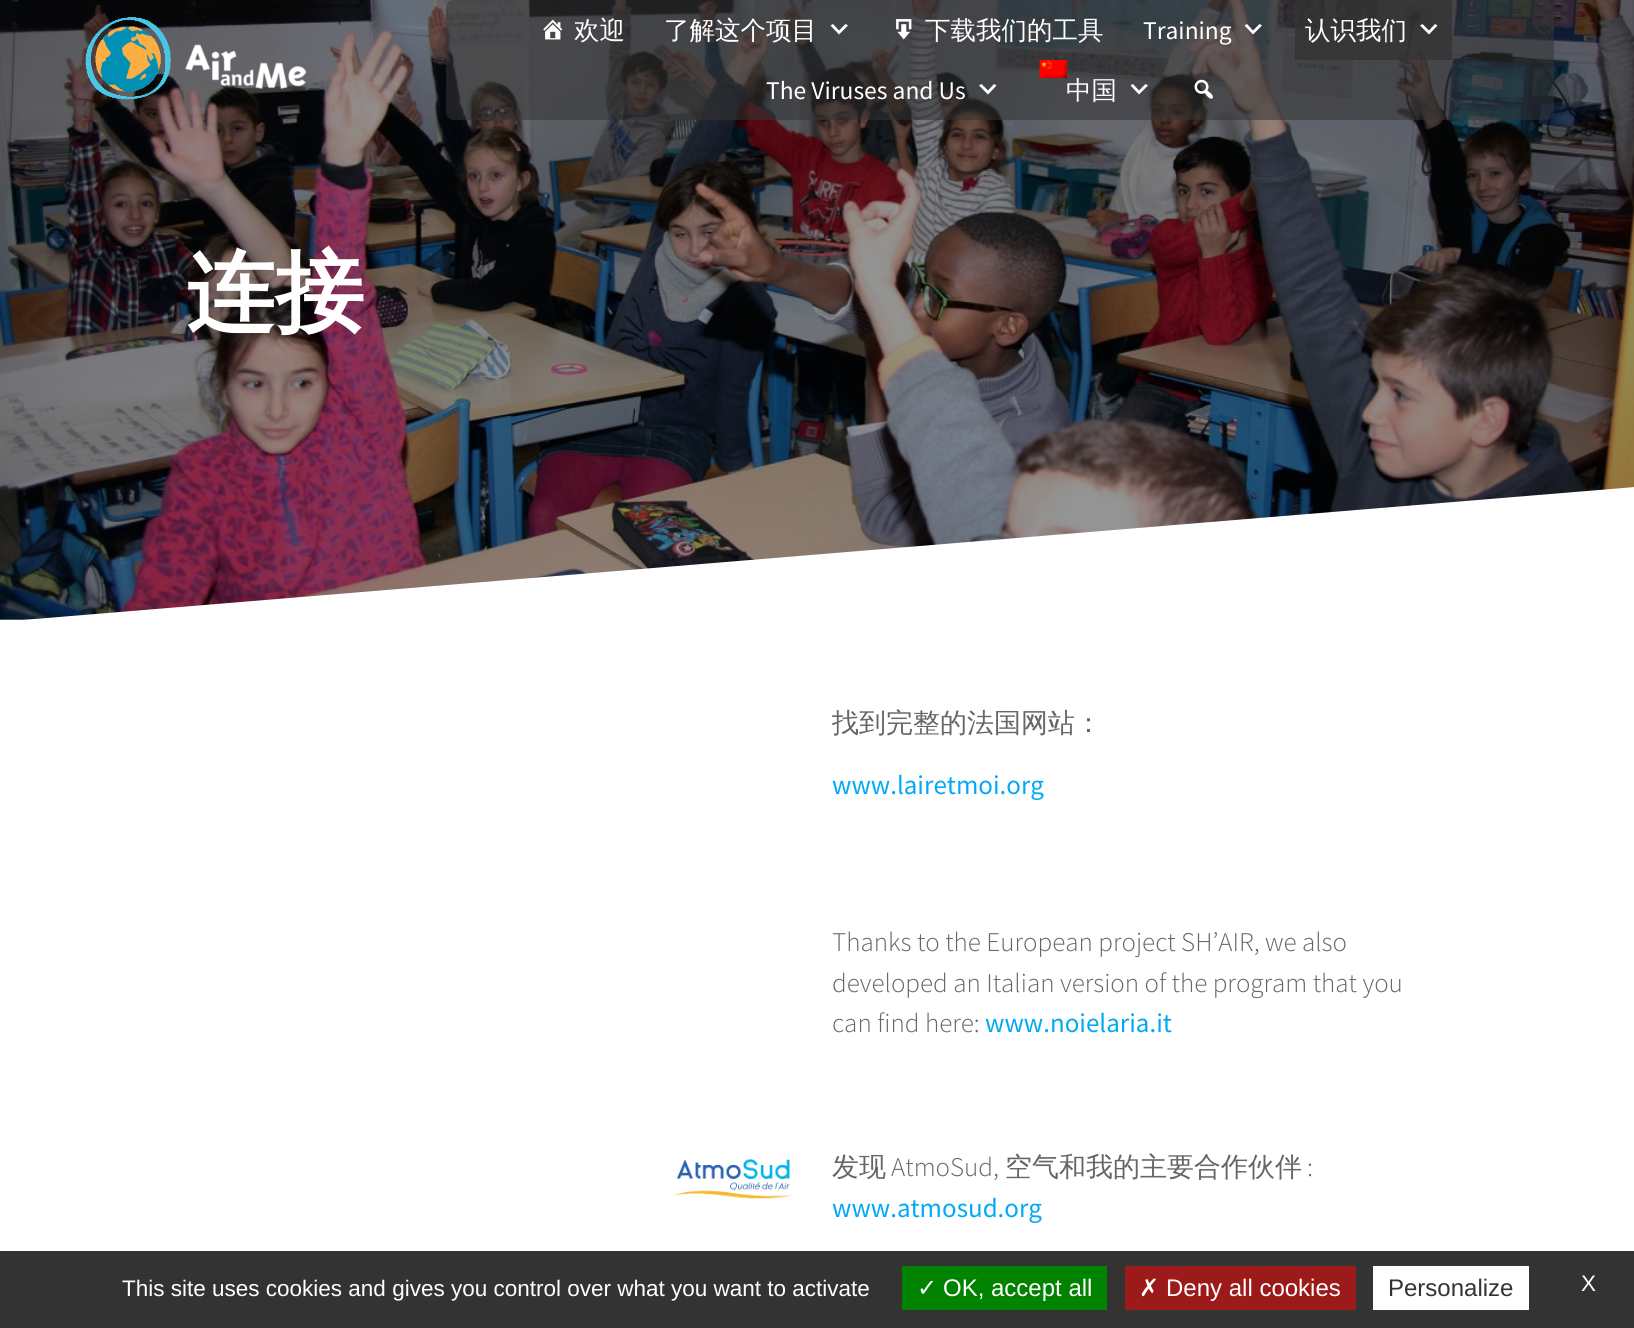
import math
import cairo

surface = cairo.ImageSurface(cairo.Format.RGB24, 1634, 1328)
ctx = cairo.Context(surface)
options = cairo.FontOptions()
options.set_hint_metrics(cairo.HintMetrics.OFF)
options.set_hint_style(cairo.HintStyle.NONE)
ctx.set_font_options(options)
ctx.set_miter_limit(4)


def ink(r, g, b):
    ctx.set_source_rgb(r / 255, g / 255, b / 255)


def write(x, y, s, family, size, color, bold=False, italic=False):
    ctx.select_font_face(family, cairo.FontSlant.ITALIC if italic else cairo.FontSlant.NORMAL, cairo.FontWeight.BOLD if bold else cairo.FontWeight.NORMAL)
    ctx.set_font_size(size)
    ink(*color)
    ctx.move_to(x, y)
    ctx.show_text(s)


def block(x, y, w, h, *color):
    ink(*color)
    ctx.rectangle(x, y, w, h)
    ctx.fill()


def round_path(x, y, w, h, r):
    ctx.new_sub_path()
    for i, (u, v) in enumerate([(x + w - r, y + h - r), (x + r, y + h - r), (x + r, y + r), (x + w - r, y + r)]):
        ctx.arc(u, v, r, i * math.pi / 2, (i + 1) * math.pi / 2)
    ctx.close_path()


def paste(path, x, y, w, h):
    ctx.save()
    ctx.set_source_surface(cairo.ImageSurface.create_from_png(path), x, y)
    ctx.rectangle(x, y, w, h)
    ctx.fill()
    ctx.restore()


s1 = dict(family="WenQuanYi Zen Hei Medium", size=25.5, color=(255, 255, 255))
s2 = dict(family="Source Sans Pro", size=25.5, color=(255, 255, 255))
s3 = dict(family="WenQuanYi Zen Hei", size=89, color=(255, 255, 255), bold=True)
s4 = dict(family="WenQuanYi Zen Hei Medium", size=27, color=(102, 102, 102))
s5 = dict(family="Source Sans Pro", size=27, color=(3, 169, 244))
s6 = dict(family="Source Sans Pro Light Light", size=27, color=(102, 102, 102))
s7 = dict(family="Liberation Sans", size=22.5, color=(255, 255, 255))
s8 = dict(family="DejaVu Sans", size=24, color=(255, 255, 255))
s9 = dict(family="Liberation Sans", size=24, color=(255, 255, 255))
s10 = dict(family="Liberation Sans", size=24, color=(51, 51, 51))

ink(255, 255, 255)
ctx.paint()
paste("pic6.png", 0, 0, 1634, 620)
ctx.set_source_rgba(0, 0, 0, 0.42)
ctx.rectangle(0, 0, 1634, 620)
ctx.fill()
paste("pic1.png", 85, 17, 222, 83)
ctx.set_source_rgba(0.2, 0.2, 0.2, 0.55)
round_path(446, 0, 1108, 120, 8)
ctx.fill()
paste("pic2.png", 543, 19, 20, 21)
write(574, 39, "欢迎", **s1)
write(664, 39, "了解这个项目", **s1)
ctx.new_path()
ctx.move_to(833, 24)
ctx.line_to(839, 30.5)
ctx.line_to(845.5, 24)
ctx.line_to(848, 25.5)
ctx.line_to(839, 34.5)
ctx.line_to(830.5, 25.5)
ctx.close_path()
ctx.fill()
paste("pic3.png", 896, 19, 16, 21)
write(925, 39, "下载我们的工具", **s1)
write(1143, 39, "Training", **s2)
ctx.new_path()
ctx.move_to(1247, 24)
ctx.line_to(1253, 30.5)
ctx.line_to(1259.5, 24)
ctx.line_to(1262, 25.5)
ctx.line_to(1253, 34.5)
ctx.line_to(1244.5, 25.5)
ctx.close_path()
ctx.fill()
ctx.set_source_rgba(0.2, 0.2, 0.2, 0.77)
ctx.rectangle(1295, 0, 157, 60)
ctx.fill()
write(1305, 39, "认识我们", **s1)
ctx.new_path()
ctx.move_to(1422.5, 24)
ctx.line_to(1429, 30.5)
ctx.line_to(1435, 24)
ctx.line_to(1437.5, 25.5)
ctx.line_to(1429, 34.5)
ctx.line_to(1420, 25.5)
ctx.close_path()
ctx.fill()
write(766, 99, "The Viruses and Us", **s2)
ctx.new_path()
ctx.move_to(981.5, 84)
ctx.line_to(988, 90.5)
ctx.line_to(994, 84)
ctx.line_to(996.5, 85.5)
ctx.line_to(988, 94.5)
ctx.line_to(979, 85.5)
ctx.close_path()
ctx.fill()
paste("pic4.png", 1039, 60, 28, 18)
write(1066, 99, "中国", **s1)
ctx.new_path()
ctx.move_to(1133, 84)
ctx.line_to(1139, 90.5)
ctx.line_to(1145.5, 84)
ctx.line_to(1148, 85.5)
ctx.line_to(1139, 94.5)
ctx.line_to(1130.5, 85.5)
ctx.close_path()
ctx.fill()
paste("pic5.png", 1194, 79, 19, 20)
write(186, 323, "连接", **s3)
ctx.save()
ctx.rectangle(0, 486, 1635, 135)
ctx.clip()
ctx.new_path()
ctx.move_to(-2, 622)
ctx.line_to(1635, 622)
ctx.line_to(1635, 487)
ctx.close_path()
ctx.fill()
ctx.restore()
write(832, 732, "找到完整的法国网站：", **s4)
write(832, 794, "www.lairetmoi.org", **s5)
write(832, 951, "Thanks to the European project SH’AIR, we also", **s6)
write(832, 992, "developed an Italian version of the program that you", **s6)
write(832, 1032, "can find here:", **s6)
write(985, 1032, "www.noielaria.it", **s5)
paste("pic7.png", 673, 1158, 121, 41)
write(832, 1176, "发现", **s4)
write(891, 1176, "AtmoSud,", **s6)
write(1005, 1176, "空气和我的主要合作伙伴", **s4)
write(1307, 1176, ":", **s6)
write(832, 1217, "www.atmosud.org", **s5)
block(0, 1251, 1634, 77, 51, 51, 51)
write(122, 1296, "This site uses cookies and gives you control over what you want to activate", **s7)
block(902, 1266, 205, 44, 0, 131, 0)
write(917, 1296, "✓", **s8)
write(943, 1296, "OK, accept all", **s9)
block(1125, 1266, 231, 44, 156, 26, 26)
write(1139, 1296, "✗", **s8)
write(1166, 1296, "Deny all cookies", **s9)
block(1373, 1266, 156, 44, 255, 255, 255)
write(1388, 1296, "Personalize", **s10)
write(1581, 1291, "X", **s7)
surface.write_to_png("screenshot.png")
